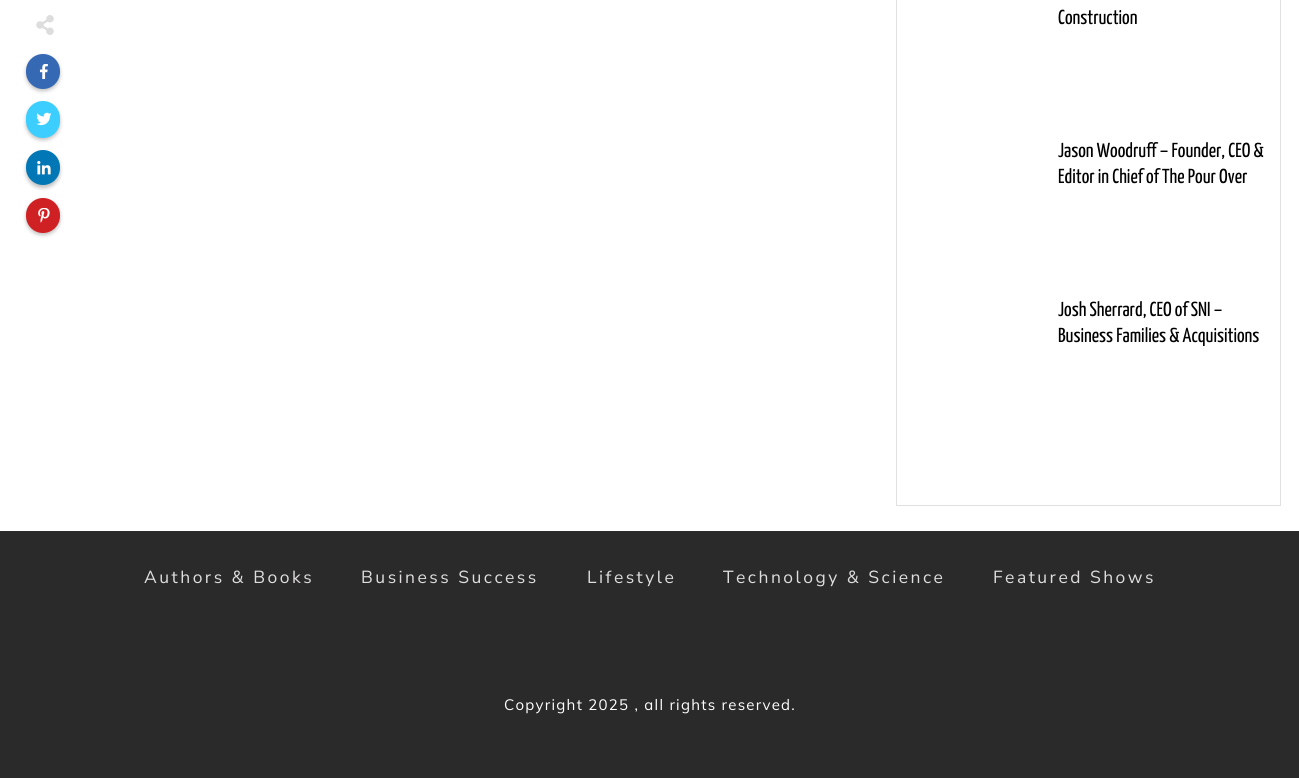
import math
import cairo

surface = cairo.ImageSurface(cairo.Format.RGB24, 1299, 778)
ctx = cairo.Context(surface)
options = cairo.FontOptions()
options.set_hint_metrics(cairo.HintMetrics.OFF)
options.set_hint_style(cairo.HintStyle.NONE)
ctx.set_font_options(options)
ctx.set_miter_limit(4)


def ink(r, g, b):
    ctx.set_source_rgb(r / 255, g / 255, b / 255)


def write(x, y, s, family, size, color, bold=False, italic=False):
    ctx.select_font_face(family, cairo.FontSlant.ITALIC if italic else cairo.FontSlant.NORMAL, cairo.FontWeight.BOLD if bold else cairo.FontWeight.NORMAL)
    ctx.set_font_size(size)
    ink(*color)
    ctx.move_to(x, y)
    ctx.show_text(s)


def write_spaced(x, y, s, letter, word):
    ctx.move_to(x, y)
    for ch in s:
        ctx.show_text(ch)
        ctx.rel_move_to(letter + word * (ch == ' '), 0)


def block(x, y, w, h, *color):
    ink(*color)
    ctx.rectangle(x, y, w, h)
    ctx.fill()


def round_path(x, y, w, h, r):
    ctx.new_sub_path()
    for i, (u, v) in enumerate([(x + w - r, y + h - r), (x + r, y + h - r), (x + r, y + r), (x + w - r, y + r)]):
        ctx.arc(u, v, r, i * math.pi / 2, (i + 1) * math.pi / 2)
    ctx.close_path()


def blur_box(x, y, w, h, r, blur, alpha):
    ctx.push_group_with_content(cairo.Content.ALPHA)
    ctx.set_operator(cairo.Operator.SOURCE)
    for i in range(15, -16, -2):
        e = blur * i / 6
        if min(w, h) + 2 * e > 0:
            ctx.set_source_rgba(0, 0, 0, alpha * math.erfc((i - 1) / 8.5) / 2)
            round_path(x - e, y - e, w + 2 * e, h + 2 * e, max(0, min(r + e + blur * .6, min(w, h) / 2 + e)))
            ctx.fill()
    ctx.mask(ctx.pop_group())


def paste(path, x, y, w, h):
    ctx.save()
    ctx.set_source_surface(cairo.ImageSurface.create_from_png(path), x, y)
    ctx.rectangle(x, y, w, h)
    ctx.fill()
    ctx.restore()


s1 = dict(family="Yanone Kaffeesatz", size=20.25, color=(0, 0, 0))

ink(255, 255, 255)
ctx.paint()
paste("pic1.png", 36, 15, 18, 20)
ink(0, 0, 0)
blur_box(26, 56, 34, 35, 17, 2, 0.25)
ink(53, 105, 180)
round_path(26, 54, 34, 35, 17)
ctx.fill()
paste("pic2.png", 39, 64, 9, 15)
ink(0, 0, 0)
blur_box(26, 104, 34, 36, 17, 2, 0.25)
ink(59, 206, 255)
round_path(26, 101, 34, 37, 17)
ctx.fill()
paste("pic3.png", 36, 112, 15, 14)
ink(0, 0, 0)
blur_box(26, 153, 34, 35, 17, 2, 0.25)
ink(1, 119, 181)
round_path(26, 150, 34, 35, 17)
ctx.fill()
paste("pic4.png", 37, 161, 14, 14)
ink(0, 0, 0)
blur_box(26, 200, 34, 35, 17, 2, 0.25)
ink(207, 33, 35)
round_path(26, 198, 34, 35, 17)
ctx.fill()
paste("pic5.png", 38, 208, 12, 15)
ctx.rectangle(896.5, -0.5, 384, 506)
ink(224, 224, 224)
ctx.set_line_width(1)
ctx.stroke()
write(1058, 24, "Construction", **s1)
write(1058, 157, "Jason Woodruff – Founder, CEO &", **s1)
write(1058, 183, "Editor in Chief of The Pour Over", **s1)
write(1058, 316, "Josh Sherrard, CEO of SNI –", **s1)
write(1058, 342, "Business Families & Acquisitions", **s1)
block(0, 531, 1299, 247, 42, 42, 42)
ctx.select_font_face("Nunito Sans")
ctx.set_font_size(17.5)
ink(223, 221, 221)
write_spaced(144, 583, "Authors & Books", 2.5, 0)
write_spaced(361, 583, "Business Success", 2.5, 0)
write_spaced(587, 583, "Lifestyle", 2.5, 0)
write_spaced(723, 583, "Technology & Science", 2.5, 0)
write_spaced(993, 583, "Featured Shows", 2.5, 0)
ctx.select_font_face("Muli")
ctx.set_font_size(15)
ink(255, 255, 255)
write_spaced(504, 710, "Copyright 2025 , all rights reserved.", 1.25, 0)
surface.write_to_png("screenshot.png")
